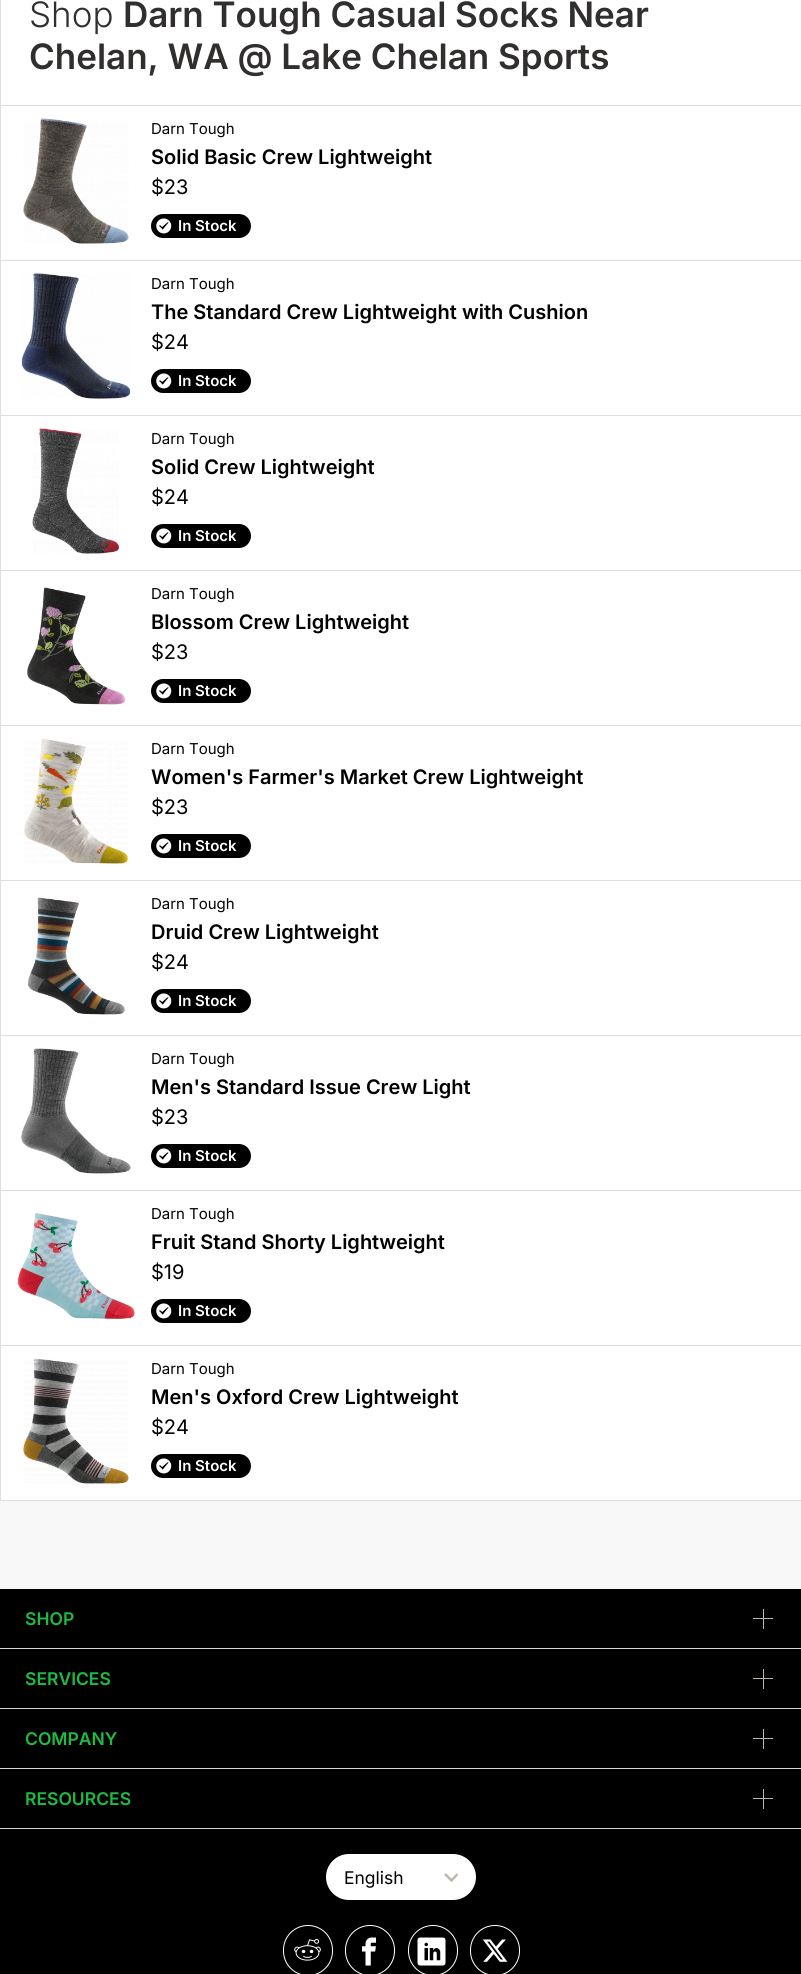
import math
import cairo

surface = cairo.ImageSurface(cairo.Format.RGB24, 801, 1974)
ctx = cairo.Context(surface)
options = cairo.FontOptions()
options.set_hint_metrics(cairo.HintMetrics.OFF)
options.set_hint_style(cairo.HintStyle.NONE)
ctx.set_font_options(options)
ctx.set_miter_limit(4)


def ink(r, g, b):
    ctx.set_source_rgb(r / 255, g / 255, b / 255)


def write(x, y, s, family, size, color, bold=False, italic=False):
    ctx.select_font_face(family, cairo.FontSlant.ITALIC if italic else cairo.FontSlant.NORMAL, cairo.FontWeight.BOLD if bold else cairo.FontWeight.NORMAL)
    ctx.set_font_size(size)
    ink(*color)
    ctx.move_to(x, y)
    ctx.show_text(s)


def block(x, y, w, h, *color):
    ink(*color)
    ctx.rectangle(x, y, w, h)
    ctx.fill()


def round_path(x, y, w, h, r):
    ctx.new_sub_path()
    for i, (u, v) in enumerate([(x + w - r, y + h - r), (x + r, y + h - r), (x + r, y + r), (x + w - r, y + r)]):
        ctx.arc(u, v, r, i * math.pi / 2, (i + 1) * math.pi / 2)
    ctx.close_path()


def paste(path, x, y, w, h):
    ctx.save()
    ctx.set_source_surface(cairo.ImageSurface.create_from_png(path), x, y)
    ctx.rectangle(x, y, w, h)
    ctx.fill()
    ctx.restore()


s1 = dict(family="Inter Light", size=35, color=(49, 46, 46))
s2 = dict(family="Inter SemiBold", size=35, color=(49, 46, 46))
s3 = dict(family="Inter", size=15, color=(0, 0, 0))
s4 = dict(family="Inter SemiBold", size=20, color=(0, 0, 0))
s5 = dict(family="Inter", size=20, color=(0, 0, 0))
s6 = dict(family="Inter SemiBold", size=15, color=(255, 255, 255))
s7 = dict(family="Inter SemiBold", size=17.5, color=(30, 186, 66))
s8 = dict(family="Inter", size=17.5, color=(0, 0, 0))

ink(248, 248, 248)
ctx.paint()
block(1, 0, 800, 1500, 255, 255, 255)
block(0, 0, 1, 1501, 222, 222, 222)
block(1, 105, 800, 1, 222, 222, 222)
write(29, 27, "Shop", **s1)
write(123, 27, "Darn Tough Casual Socks Near", **s2)
write(29, 69, "Chelan, WA @ Lake Chelan Sports", **s2)
block(1, 260, 800, 1, 222, 222, 222)
paste("pic1.png", 23, 118, 106, 126)
write(151, 134, "Darn Tough", **s3)
write(151, 164, "Solid Basic Crew Lightweight", **s4)
write(151, 194, "$23", **s5)
round_path(151, 214, 100, 24, 12)
ctx.fill()
paste("pic2.png", 156, 218, 16, 16)
write(178, 231, "In Stock", **s6)
block(1, 415, 800, 1, 222, 222, 222)
paste("pic3.png", 21, 273, 110, 126)
write(151, 289, "Darn Tough", **s3)
write(151, 319, "The Standard Crew Lightweight with Cushion", **s4)
write(151, 349, "$24", **s5)
round_path(151, 369, 100, 24, 12)
ctx.fill()
paste("pic2.png", 156, 373, 16, 16)
write(178, 386, "In Stock", **s6)
block(1, 570, 800, 1, 222, 222, 222)
paste("pic4.png", 32, 428, 87, 126)
write(151, 444, "Darn Tough", **s3)
write(151, 474, "Solid Crew Lightweight", **s4)
write(151, 504, "$24", **s5)
round_path(151, 524, 100, 24, 12)
ctx.fill()
paste("pic2.png", 156, 528, 16, 16)
write(178, 541, "In Stock", **s6)
block(1, 725, 800, 1, 222, 222, 222)
paste("pic5.png", 27, 587, 99, 118)
write(151, 599, "Darn Tough", **s3)
write(151, 629, "Blossom Crew Lightweight", **s4)
write(151, 659, "$23", **s5)
round_path(151, 679, 100, 24, 12)
ctx.fill()
paste("pic2.png", 156, 683, 16, 16)
write(178, 696, "In Stock", **s6)
block(1, 880, 800, 1, 222, 222, 222)
paste("pic6.png", 24, 738, 104, 126)
write(151, 754, "Darn Tough", **s3)
write(151, 784, "Women's Farmer's Market Crew Lightweight", **s4)
write(151, 814, "$23", **s5)
round_path(151, 834, 100, 24, 12)
ctx.fill()
paste("pic2.png", 156, 838, 16, 16)
write(178, 851, "In Stock", **s6)
block(1, 1035, 800, 1, 222, 222, 222)
paste("pic7.png", 27, 897, 98, 118)
write(151, 909, "Darn Tough", **s3)
write(151, 939, "Druid Crew Lightweight", **s4)
write(151, 969, "$24", **s5)
round_path(151, 989, 100, 24, 12)
ctx.fill()
paste("pic2.png", 156, 993, 16, 16)
write(178, 1006, "In Stock", **s6)
block(1, 1190, 800, 1, 222, 222, 222)
paste("pic8.png", 21, 1048, 110, 126)
write(151, 1064, "Darn Tough", **s3)
write(151, 1094, "Men's Standard Issue Crew Light", **s4)
write(151, 1124, "$23", **s5)
round_path(151, 1144, 100, 24, 12)
ctx.fill()
paste("pic2.png", 156, 1148, 16, 16)
write(178, 1161, "In Stock", **s6)
block(1, 1345, 800, 1, 222, 222, 222)
paste("pic9.png", 17, 1213, 119, 107)
write(151, 1219, "Darn Tough", **s3)
write(151, 1249, "Fruit Stand Shorty Lightweight", **s4)
write(151, 1279, "$19", **s5)
round_path(151, 1299, 100, 24, 12)
ctx.fill()
paste("pic2.png", 156, 1303, 16, 16)
write(178, 1316, "In Stock", **s6)
block(1, 1500, 800, 1, 222, 222, 222)
paste("pic10.png", 23, 1358, 106, 126)
write(151, 1374, "Darn Tough", **s3)
write(151, 1404, "Men's Oxford Crew Lightweight", **s4)
write(151, 1434, "$24", **s5)
round_path(151, 1454, 100, 24, 12)
ctx.fill()
paste("pic2.png", 156, 1458, 16, 16)
write(178, 1471, "In Stock", **s6)
block(0, 1589, 801, 385, 0, 0, 0)
block(0, 1648, 801, 1, 217, 212, 207)
write(25, 1625, "SHOP", **s7)
block(763, 1609, 1, 20, 190, 182, 174)
block(753, 1618, 20, 1, 190, 182, 174)
block(0, 1708, 801, 1, 217, 212, 207)
write(25, 1685, "SERVICES", **s7)
block(763, 1669, 1, 20, 190, 182, 174)
block(753, 1678, 20, 1, 190, 182, 174)
block(0, 1768, 801, 1, 217, 212, 207)
write(25, 1745, "COMPANY", **s7)
block(763, 1729, 1, 20, 190, 182, 174)
block(753, 1738, 20, 1, 190, 182, 174)
block(0, 1828, 801, 1, 217, 212, 207)
write(25, 1805, "RESOURCES", **s7)
block(763, 1789, 1, 20, 190, 182, 174)
block(753, 1798, 20, 1, 190, 182, 174)
ink(255, 255, 255)
round_path(326, 1854, 150, 46, 23)
ctx.fill()
ctx.new_path()
ctx.move_to(457.5, 1874)
ctx.line_to(451.5, 1880.5)
ctx.line_to(445, 1874)
ink(190, 182, 174)
ctx.set_line_width(2.5)
ctx.stroke()
write(344, 1884, "English", **s8)
round_path(283.5, 1925.5, 49, 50, 24.5)
ink(255, 255, 255)
ctx.set_line_width(1)
ctx.stroke()
paste("pic11.png", 294, 1939, 27, 22)
round_path(345.5, 1925.5, 49, 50, 24.5)
ctx.stroke()
paste("pic12.png", 362, 1937, 14, 29)
round_path(408.5, 1925.5, 49, 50, 24.5)
ctx.stroke()
paste("pic13.png", 417, 1937, 29, 29)
round_path(470.5, 1925.5, 49, 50, 24.5)
ctx.stroke()
paste("pic14.png", 482, 1939, 26, 23)
surface.write_to_png("screenshot.png")
